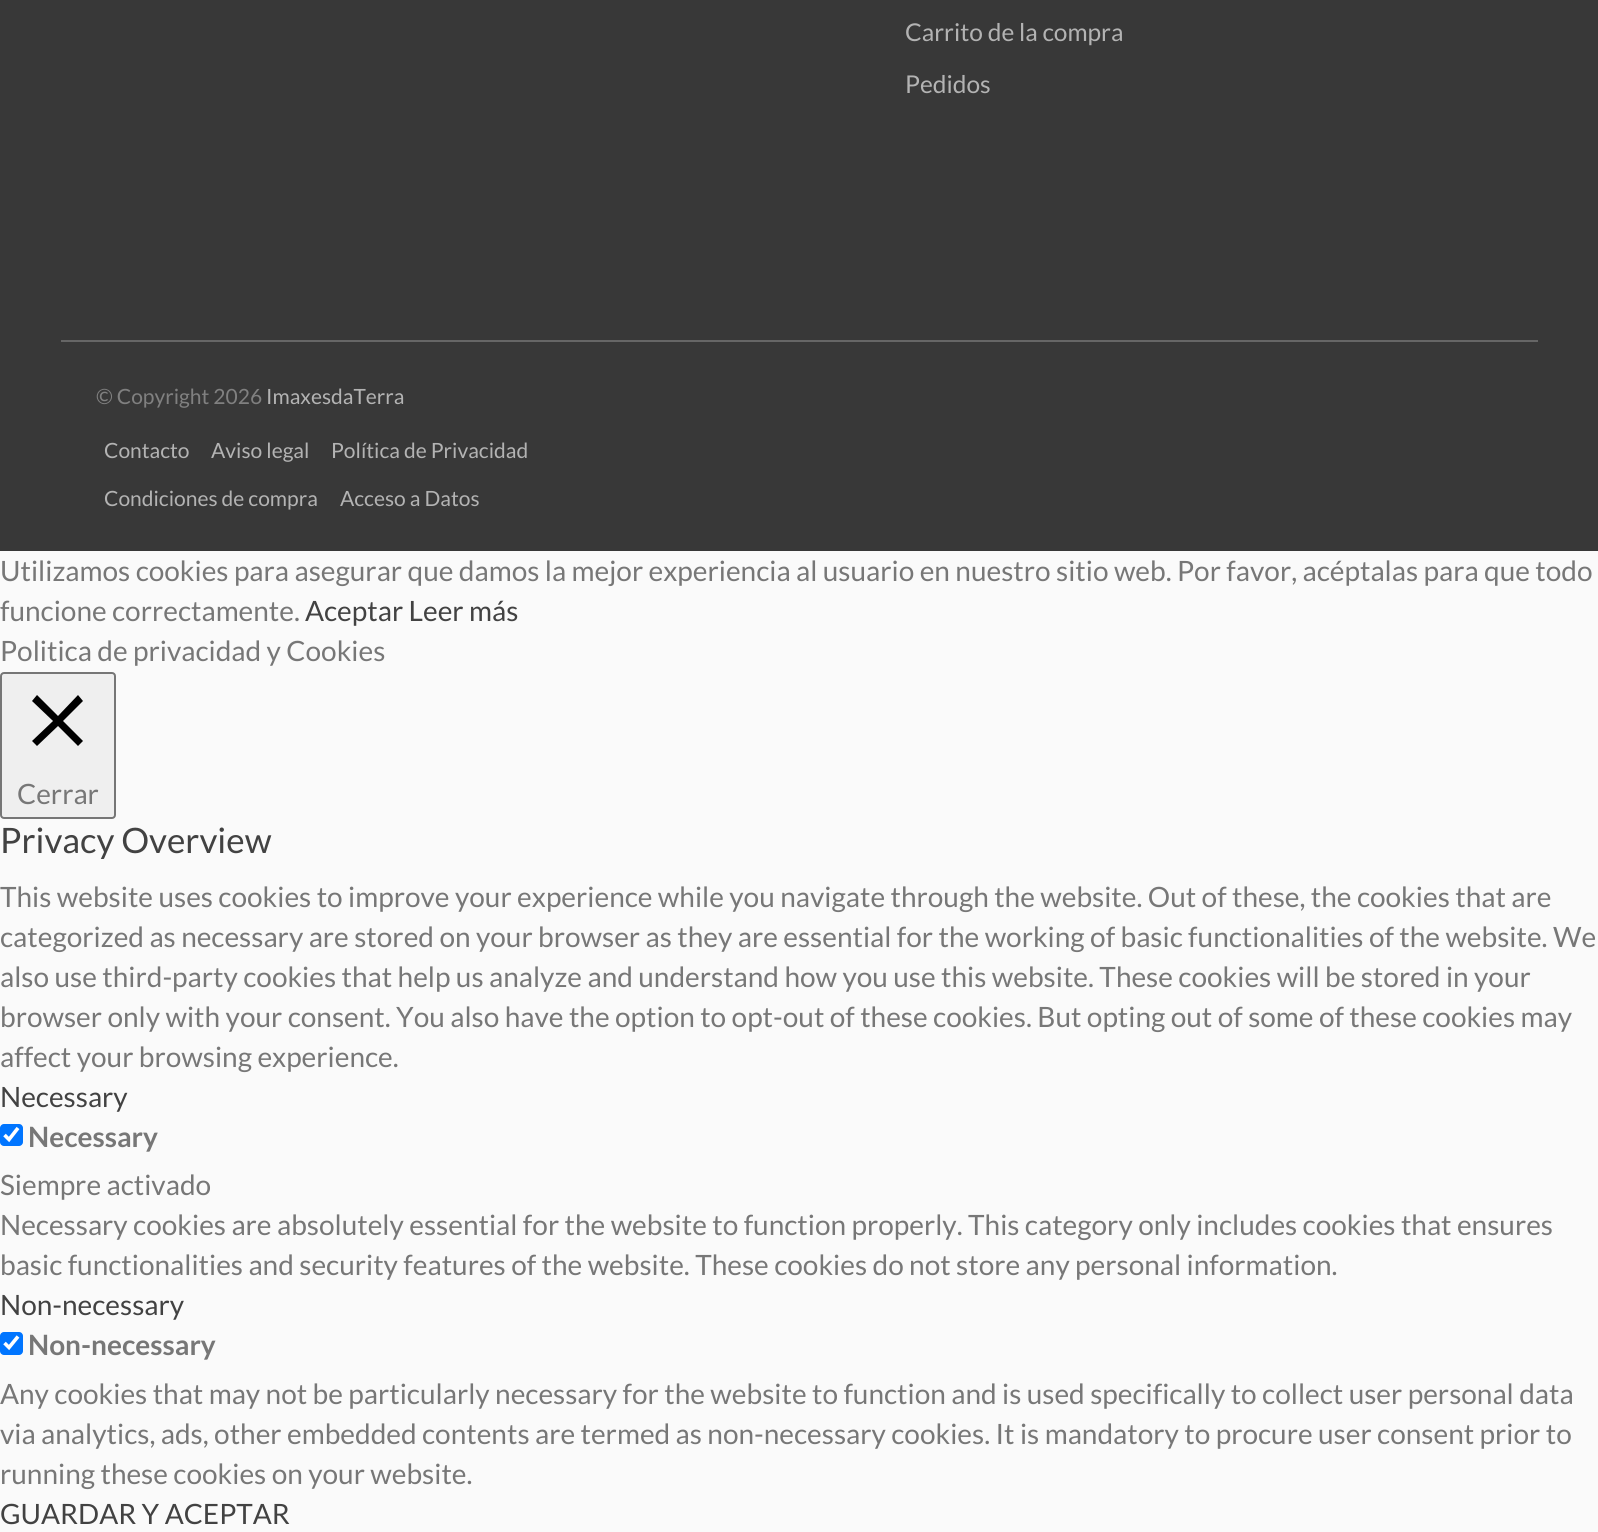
import math
import cairo

surface = cairo.ImageSurface(cairo.Format.RGB24, 1598, 1532)
ctx = cairo.Context(surface)
options = cairo.FontOptions()
options.set_hint_metrics(cairo.HintMetrics.OFF)
options.set_hint_style(cairo.HintStyle.NONE)
ctx.set_font_options(options)
ctx.set_miter_limit(4)


def ink(r, g, b):
    ctx.set_source_rgb(r / 255, g / 255, b / 255)


def write(x, y, s, family, size, color, bold=False, italic=False):
    ctx.select_font_face(family, cairo.FontSlant.ITALIC if italic else cairo.FontSlant.NORMAL, cairo.FontWeight.BOLD if bold else cairo.FontWeight.NORMAL)
    ctx.set_font_size(size)
    ink(*color)
    ctx.move_to(x, y)
    ctx.show_text(s)


def block(x, y, w, h, *color):
    ink(*color)
    ctx.rectangle(x, y, w, h)
    ctx.fill()


def round_path(x, y, w, h, r):
    ctx.new_sub_path()
    for i, (u, v) in enumerate([(x + w - r, y + h - r), (x + r, y + h - r), (x + r, y + r), (x + w - r, y + r)]):
        ctx.arc(u, v, r, i * math.pi / 2, (i + 1) * math.pi / 2)
    ctx.close_path()


s1 = dict(family="Lato", size=24.5, color=(179, 179, 179))
s2 = dict(family="Lato", size=21, color=(128, 128, 128))
s3 = dict(family="Lato", size=21, color=(179, 179, 179))
s4 = dict(family="Lato", size=28, color=(119, 119, 119))
s5 = dict(family="Lato", size=28, color=(66, 66, 66))
s6 = dict(family="Lato", size=35, color=(66, 66, 66))
s7 = dict(family="Lato", size=28, color=(119, 119, 119), bold=True)

ink(250, 250, 250)
ctx.paint()
block(0, 0, 1598, 551, 56, 56, 56)
block(61, 340, 1477, 2, 102, 102, 102)
write(905, 41, "Carrito de la compra", **s1)
write(905, 93, "Pedidos", **s1)
write(96, 404, "© Copyright 2026", **s2)
write(266, 404, "ImaxesdaTerra", **s3)
write(104, 458, "Contacto", **s3)
write(211, 458, "Aviso legal", **s3)
write(331, 458, "Política de Privacidad", **s3)
write(104, 506, "Condiciones de compra", **s3)
write(340, 506, "Acceso a Datos", **s3)
write(0, 581, "Utilizamos cookies para asegurar que damos la mejor experiencia al usuario en nuestro sitio web. Por favor, acéptalas para que todo", **s4)
write(0, 621, "funcione correctamente.", **s4)
write(305, 621, "Aceptar Leer más", **s5)
write(0, 661, "Politica de privacidad y Cookies", **s4)
ink(239, 239, 239)
round_path(1, 673, 114, 145, 3)
ctx.fill_preserve()
ink(118, 118, 118)
ctx.stroke()
ink(0, 0, 0)
ctx.new_path()
ctx.move_to(83, 701)
ctx.line_to(78, 695)
ctx.line_to(58, 716)
ctx.line_to(37, 695)
ctx.line_to(32, 701)
ctx.line_to(53, 721)
ctx.line_to(32, 741)
ctx.line_to(37, 746)
ctx.line_to(58, 726)
ctx.line_to(78, 746)
ctx.line_to(83, 741)
ctx.line_to(63, 721)
ctx.close_path()
ctx.fill()
write(17, 804, "Cerrar", **s4)
write(0, 853, "Privacy Overview", **s6)
write(0, 907, "This website uses cookies to improve your experience while you navigate through the website. Out of these, the cookies that are", **s4)
write(0, 947, "categorized as necessary are stored on your browser as they are essential for the working of basic functionalities of the website. We", **s4)
write(0, 987, "also use third-party cookies that help us analyze and understand how you use this website. These cookies will be stored in your", **s4)
write(0, 1027, "browser only with your consent. You also have the option to opt-out of these cookies. But opting out of some of these cookies may", **s4)
write(0, 1067, "affect your browsing experience.", **s4)
write(0, 1107, "Necessary", **s5)
ink(0, 117, 255)
round_path(0, 1124, 23, 22, 4)
ctx.fill()
ctx.new_path()
ctx.move_to(4.5, 1135)
ctx.line_to(9, 1139.5)
ctx.line_to(18, 1128)
ink(255, 255, 255)
ctx.set_line_width(3.6)
ctx.stroke()
write(28, 1147, "Necessary", **s7)
write(0, 1195, "Siempre activado", **s4)
write(0, 1235, "Necessary cookies are absolutely essential for the website to function properly. This category only includes cookies that ensures", **s4)
write(0, 1275, "basic functionalities and security features of the website. These cookies do not store any personal information.", **s4)
write(0, 1315, "Non-necessary", **s5)
ink(0, 117, 255)
round_path(0, 1332, 23, 23, 4)
ctx.fill()
ctx.new_path()
ctx.move_to(4.5, 1343)
ctx.line_to(9, 1347.5)
ctx.line_to(18, 1336.5)
ink(255, 255, 255)
ctx.stroke()
write(28, 1355, "Non-necessary", **s7)
write(0, 1404, "Any cookies that may not be particularly necessary for the website to function and is used specifically to collect user personal data", **s4)
write(0, 1444, "via analytics, ads, other embedded contents are termed as non-necessary cookies. It is mandatory to procure user consent prior to", **s4)
write(0, 1484, "running these cookies on your website.", **s4)
write(0, 1524, "GUARDAR Y ACEPTAR", **s5)
surface.write_to_png("screenshot.png")
